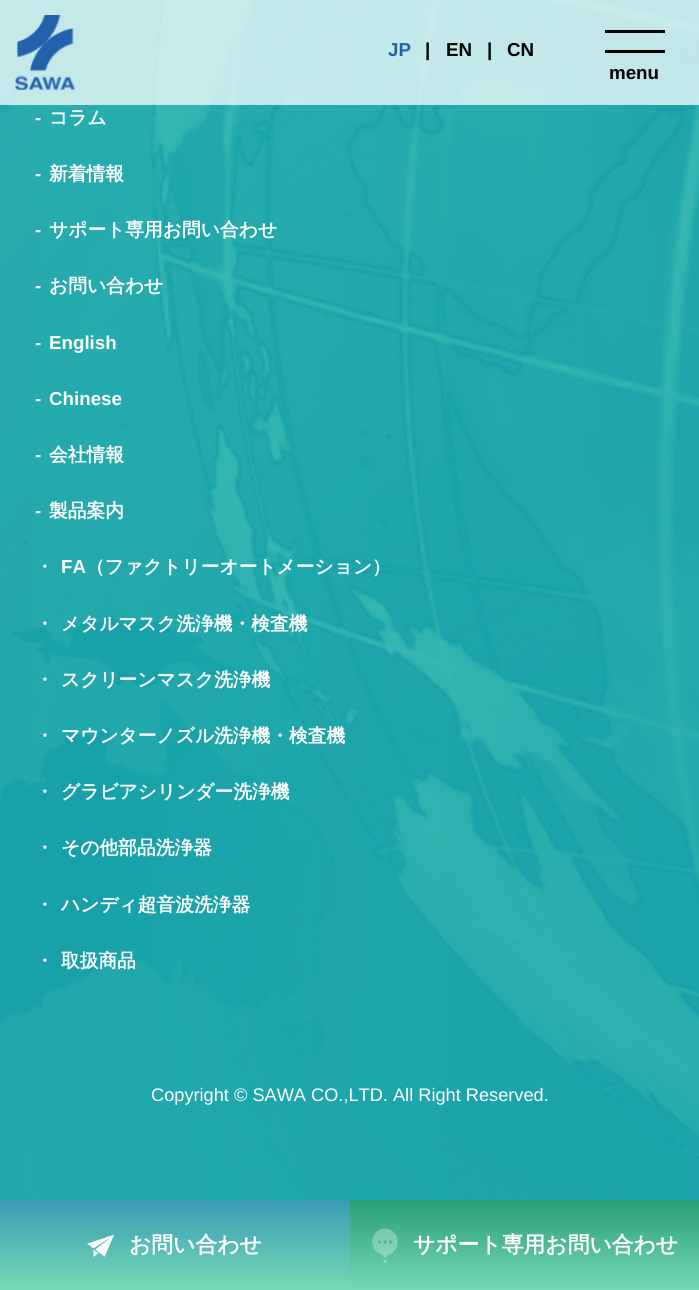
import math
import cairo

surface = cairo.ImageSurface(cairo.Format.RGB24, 699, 1290)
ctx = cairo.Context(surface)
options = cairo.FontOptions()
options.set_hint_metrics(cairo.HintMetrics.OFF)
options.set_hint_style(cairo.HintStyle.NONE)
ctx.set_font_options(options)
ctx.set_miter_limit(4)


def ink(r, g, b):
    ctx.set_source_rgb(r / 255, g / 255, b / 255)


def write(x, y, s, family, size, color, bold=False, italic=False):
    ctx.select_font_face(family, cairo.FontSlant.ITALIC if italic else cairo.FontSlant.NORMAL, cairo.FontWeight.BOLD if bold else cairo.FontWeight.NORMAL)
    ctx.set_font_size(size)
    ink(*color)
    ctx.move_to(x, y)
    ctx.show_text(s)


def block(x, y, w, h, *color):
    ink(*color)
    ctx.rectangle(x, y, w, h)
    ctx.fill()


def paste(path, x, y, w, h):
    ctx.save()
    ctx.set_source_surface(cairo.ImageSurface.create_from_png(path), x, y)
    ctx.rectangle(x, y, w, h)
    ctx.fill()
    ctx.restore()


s1 = dict(family="Liberation Sans", size=18.75, color=(36, 97, 173), bold=True)
s2 = dict(family="Liberation Sans", size=18.75, color=(0, 0, 0), bold=True)
s3 = dict(family="Liberation Sans", size=18.75, color=(255, 255, 255), bold=True)
s4 = dict(family="WenQuanYi Zen Hei", size=18.75, color=(255, 255, 255), bold=True)
s5 = dict(family="Liberation Sans", size=18.2, color=(255, 255, 255))
s6 = dict(family="WenQuanYi Zen Hei", size=21.8, color=(255, 255, 255), bold=True)

ink(255, 255, 255)
ctx.paint()
paste("pic2.png", 0, 0, 699, 1200)
ctx.set_source_rgba(1, 1, 1, 0.73)
ctx.rectangle(0, 0, 699, 105)
ctx.fill()
paste("pic1.png", 15, 15, 60, 75)
write(388, 56, "JP", **s1)
write(425, 56, "|", **s2)
write(446, 56, "EN", **s2)
write(487, 56, "|", **s2)
write(507, 56, "CN", **s2)
block(605, 30, 60, 3, 0, 0, 0)
block(605, 50, 60, 3, 0, 0, 0)
write(609, 79, "menu", **s2)
write(35, 124, "-", **s3)
write(49, 124, "コラム", **s4)
write(35, 180, "-", **s3)
write(49, 180, "新着情報", **s4)
write(35, 236, "-", **s3)
write(49, 236, "サポート専用お問い合わせ", **s4)
write(35, 292, "-", **s3)
write(49, 292, "お問い合わせ", **s4)
write(35, 349, "-", **s3)
write(49, 349, "English", **s3)
write(35, 405, "-", **s3)
write(49, 405, "Chinese", **s3)
write(35, 461, "-", **s3)
write(49, 461, "会社情報", **s4)
write(35, 517, "-", **s3)
write(49, 517, "製品案内", **s4)
write(35, 573, "・", **s4)
write(61, 573, "FA", **s3)
write(86, 573, "（ファクトリーオートメーション）", **s4)
write(35, 630, "・", **s4)
write(61, 630, "メタルマスク洗浄機・検査機", **s4)
write(35, 686, "・", **s4)
write(61, 686, "スクリーンマスク洗浄機", **s4)
write(35, 742, "・", **s4)
write(61, 742, "マウンターノズル洗浄機・検査機", **s4)
write(35, 798, "・", **s4)
write(61, 798, "グラビアシリンダー洗浄機", **s4)
write(35, 854, "・", **s4)
write(61, 854, "その他部品洗浄器", **s4)
write(35, 911, "・", **s4)
write(61, 911, "ハンディ超音波洗浄器", **s4)
write(35, 967, "・", **s4)
write(61, 967, "取扱商品", **s4)
write(151, 1101, "Copyright © SAWA CO.,LTD. All Right Reserved.", **s5)
gradient = cairo.LinearGradient(175, 1290, 175, 1200)
gradient.add_color_stop_rgba(0, 0.459, 0.851, 0.71, 1)
gradient.add_color_stop_rgba(1, 0.224, 0.612, 0.71, 1)
ctx.set_source(gradient)
ctx.rectangle(0, 1200, 350, 90)
ctx.fill()
paste("pic3.png", 87, 1234, 27, 23)
write(129, 1252, "お問い合わせ", **s6)
gradient = cairo.LinearGradient(524, 1290, 524, 1200)
gradient.add_color_stop_rgba(0, 0.459, 0.851, 0.71, 1)
gradient.add_color_stop_rgba(1, 0.157, 0.62, 0.471, 1)
ctx.set_source(gradient)
ctx.rectangle(350, 1200, 349, 90)
ctx.fill()
paste("pic4.png", 372, 1228, 26, 35)
write(413, 1252, "サポート専用お問い合わせ", **s6)
surface.write_to_png("screenshot.png")
